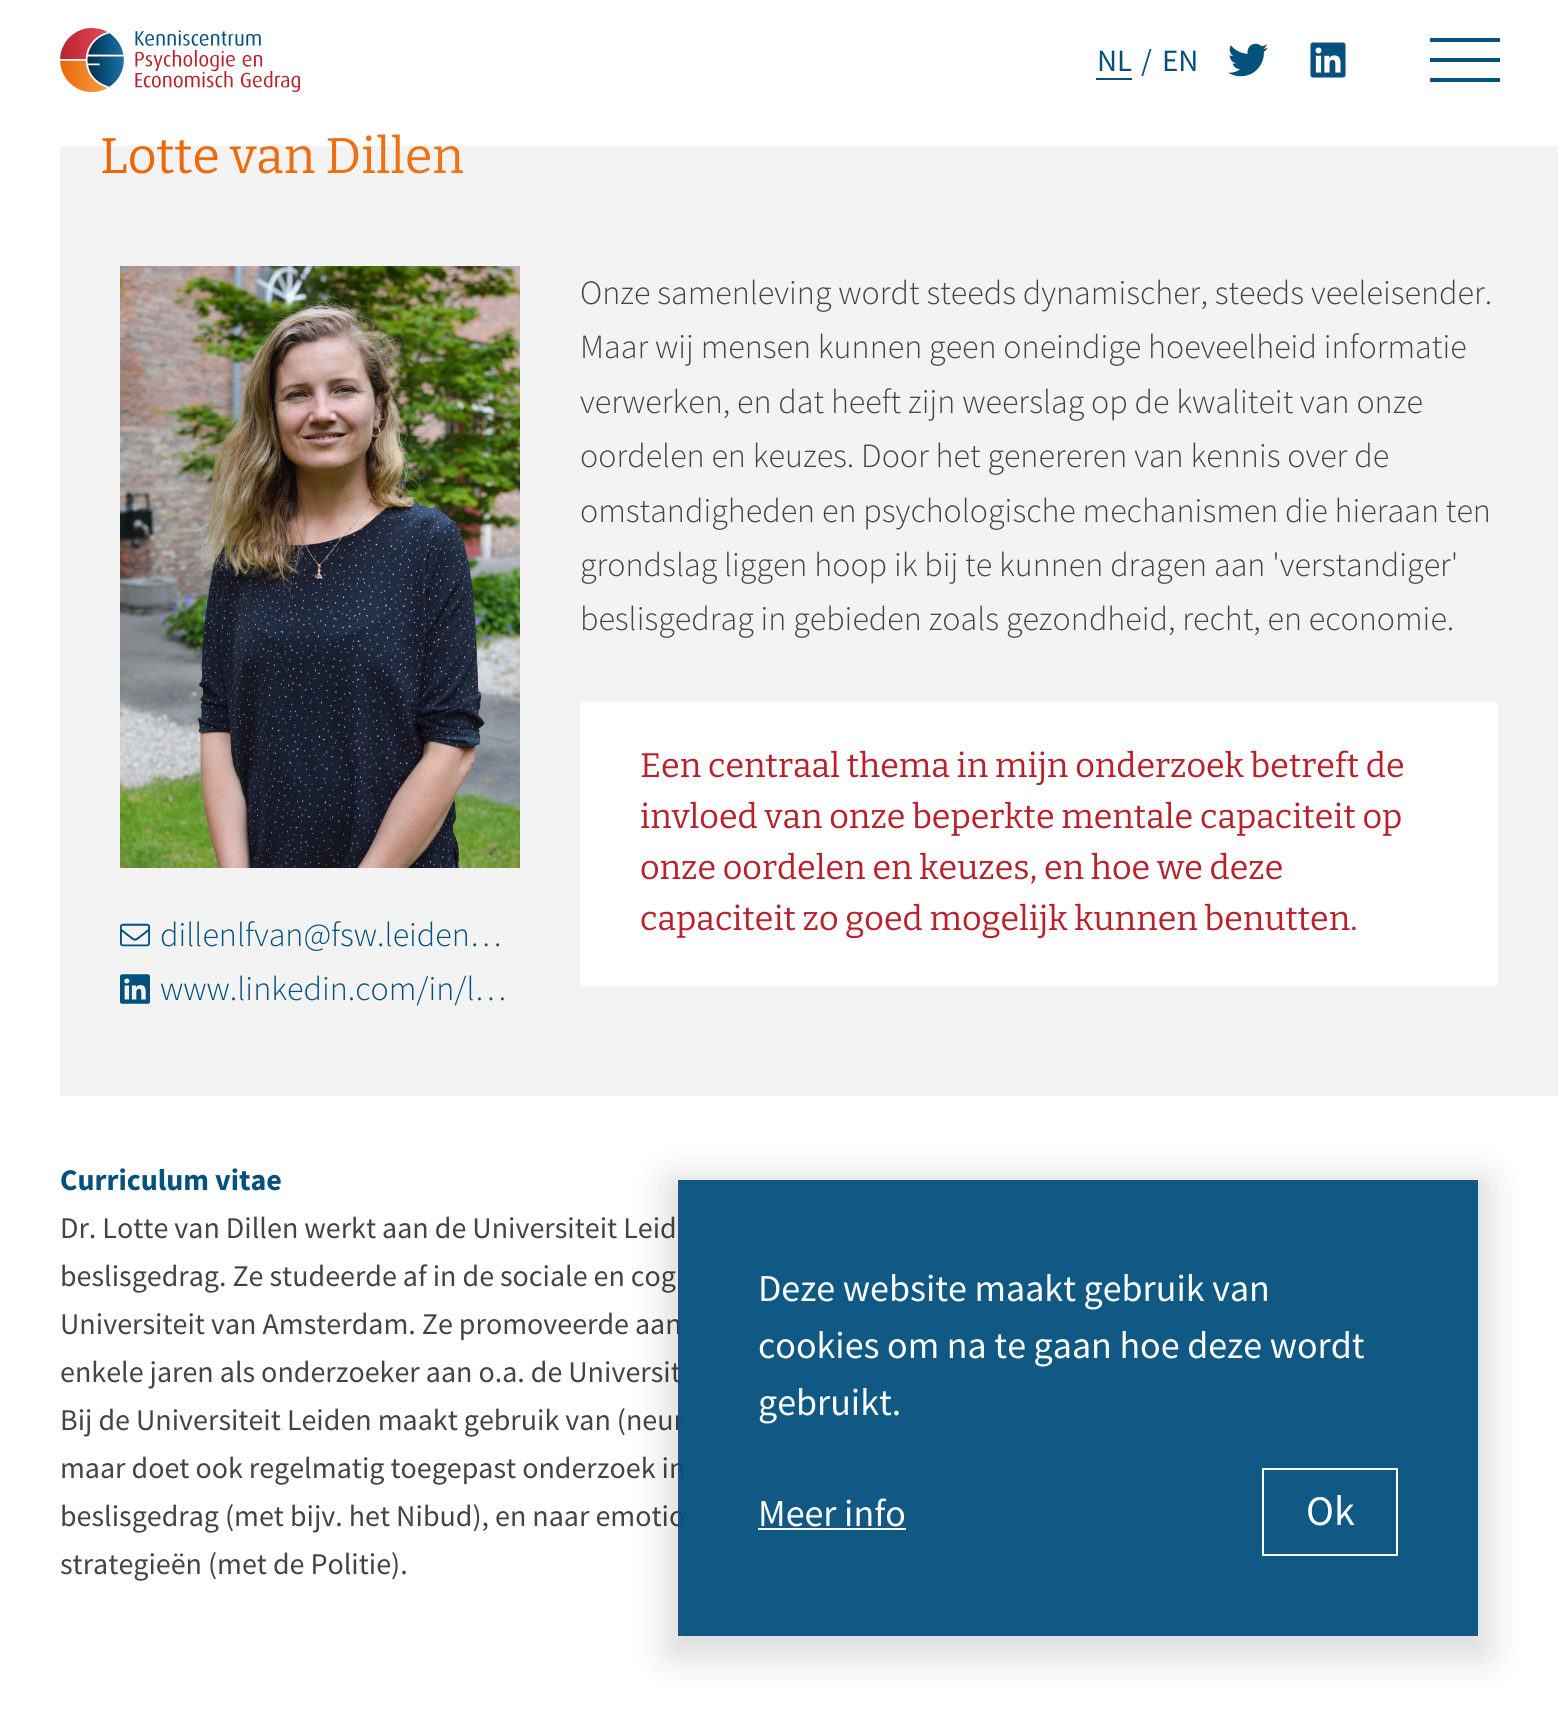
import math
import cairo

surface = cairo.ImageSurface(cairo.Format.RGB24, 1558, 1716)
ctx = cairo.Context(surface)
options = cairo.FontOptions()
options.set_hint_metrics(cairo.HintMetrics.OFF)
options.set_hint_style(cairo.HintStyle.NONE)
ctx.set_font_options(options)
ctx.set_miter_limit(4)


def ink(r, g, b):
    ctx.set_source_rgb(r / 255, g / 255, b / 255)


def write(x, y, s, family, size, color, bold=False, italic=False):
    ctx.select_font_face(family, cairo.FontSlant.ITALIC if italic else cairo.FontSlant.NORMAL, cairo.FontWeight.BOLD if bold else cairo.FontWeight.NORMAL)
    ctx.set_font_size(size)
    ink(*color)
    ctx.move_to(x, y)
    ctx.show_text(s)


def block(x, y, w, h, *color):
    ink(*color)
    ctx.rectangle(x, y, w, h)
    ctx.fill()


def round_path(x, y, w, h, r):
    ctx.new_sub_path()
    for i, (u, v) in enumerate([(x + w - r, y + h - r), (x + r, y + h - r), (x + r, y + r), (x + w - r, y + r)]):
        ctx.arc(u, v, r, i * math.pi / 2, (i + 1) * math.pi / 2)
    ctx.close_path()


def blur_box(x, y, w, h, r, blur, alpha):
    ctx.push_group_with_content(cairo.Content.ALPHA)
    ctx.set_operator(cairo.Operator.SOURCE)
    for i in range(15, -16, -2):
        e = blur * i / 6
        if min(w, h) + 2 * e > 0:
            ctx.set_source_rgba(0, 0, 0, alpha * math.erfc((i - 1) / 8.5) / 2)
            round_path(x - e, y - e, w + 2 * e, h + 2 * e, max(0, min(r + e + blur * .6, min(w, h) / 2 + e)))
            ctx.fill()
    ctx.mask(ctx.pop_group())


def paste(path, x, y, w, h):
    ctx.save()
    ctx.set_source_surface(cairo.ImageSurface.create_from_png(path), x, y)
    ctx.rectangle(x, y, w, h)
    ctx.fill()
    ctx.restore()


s1 = dict(family="Source Sans Pro", size=31, color=(5, 81, 126))
s2 = dict(family="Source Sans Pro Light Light", size=34, color=(68, 68, 68))
s3 = dict(family="Bitter", size=34, color=(184, 33, 43))
s4 = dict(family="Source Sans Pro Light Light", size=34, color=(5, 81, 126))
s5 = dict(family="Source Sans Pro", size=30, color=(5, 81, 126), bold=True)
s6 = dict(family="Source Sans Pro", size=30, color=(68, 68, 68))
s7 = dict(family="Source Sans Pro", size=38, color=(255, 255, 255))
s8 = dict(family="Source Sans Pro", size=42, color=(255, 255, 255))

ink(255, 255, 255)
ctx.paint()
paste("pic1.png", 60, 28, 240, 64)
write(1097, 71, "NL", **s1)
block(1096, 78, 36, 2, 5, 81, 126)
write(1141, 71, "/", **s1)
write(1162, 71, "EN", **s1)
paste("pic2.png", 1228, 43, 40, 34)
paste("pic3.png", 1310, 42, 36, 36)
block(1430, 38, 70, 4, 5, 81, 126)
block(1430, 58, 70, 4, 5, 81, 126)
block(1430, 78, 70, 4, 5, 81, 126)
block(60, 146, 1498, 950, 243, 243, 243)
ctx.select_font_face("Bitter")
ctx.set_font_size(50)
gradient = cairo.LinearGradient(100, 157, 1538, 157)
gradient.add_color_stop_rgba(0, 0.925, 0.4, 0.031, 1)
gradient.add_color_stop_rgba(1, 0.961, 0.627, 0.286, 1)
ctx.set_source(gradient)
ctx.move_to(100, 173)
ctx.show_text("Lotte van Dillen")
write(580, 304, "Onze samenleving wordt steeds dynamischer, steeds veeleisender.", **s2)
write(580, 358, "Maar wij mensen kunnen geen oneindige hoeveelheid informatie", **s2)
write(580, 413, "verwerken, en dat heeft zijn weerslag op de kwaliteit van onze", **s2)
write(580, 467, "oordelen en keuzes. Door het genereren van kennis over de", **s2)
write(580, 522, "omstandigheden en psychologische mechanismen die hieraan ten", **s2)
write(580, 576, "grondslag liggen hoop ik bij te kunnen dragen aan 'verstandiger'", **s2)
write(580, 630, "beslisgedrag in gebieden zoals gezondheid, recht, en economie.", **s2)
block(580, 702, 918, 284, 255, 255, 255)
write(640, 777, "Een centraal thema in mijn onderzoek betreft de", **s3)
write(640, 828, "invloed van onze beperkte mentale capaciteit op", **s3)
write(640, 879, "onze oordelen en keuzes, en hoe we deze", **s3)
write(640, 930, "capaciteit zo goed mogelijk kunnen benutten.", **s3)
paste("pic4.png", 120, 266, 400, 602)
paste("pic5.png", 120, 923, 30, 24)
write(160, 946, "dillenlfvan@fsw.leiden…", **s4)
paste("pic6.png", 120, 974, 30, 30)
write(160, 1000, "www.linkedin.com/in/l…", **s4)
write(60, 1190, "Curriculum vitae", **s5)
write(60, 1238, "Dr. Lotte van Dillen werkt aan de Universiteit Leid", **s6)
write(60, 1286, "beslisgedrag. Ze studeerde af in de sociale en cog", **s6)
write(60, 1334, "Universiteit van Amsterdam. Ze promoveerde aan", **s6)
write(60, 1382, "enkele jaren als onderzoeker aan o.a. de Universit", **s6)
write(60, 1430, "Bij de Universiteit Leiden maakt gebruik van (neur", **s6)
write(60, 1478, "maar doet ook regelmatig toegepast onderzoek in", **s6)
write(60, 1526, "beslisgedrag (met bijv. het Nibud), en naar emotio", **s6)
write(60, 1574, "strategieën (met de Politie).", **s6)
ctx.save()
ctx.set_fill_rule(cairo.FillRule.EVEN_ODD)
ctx.new_path()
ctx.move_to(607, 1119)
ctx.line_to(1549, 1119)
ctx.line_to(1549, 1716)
ctx.line_to(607, 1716)
ctx.close_path()
ctx.move_to(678, 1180)
ctx.line_to(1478, 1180)
ctx.line_to(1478, 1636)
ctx.line_to(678, 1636)
ctx.close_path()
ctx.clip()
ink(0, 0, 0)
blur_box(668, 1180, 820, 476, 0, 20, 0.15)
ctx.restore()
ctx.set_source_rgba(0.02, 0.318, 0.494, 0.95)
ctx.rectangle(678, 1180, 800, 456)
ctx.fill()
write(758, 1301, "Deze website maakt gebruik van", **s7)
write(758, 1358, "cookies om na te gaan hoe deze wordt", **s7)
write(758, 1415, "gebruikt.", **s7)
write(758, 1526, "Meer info", **s7)
block(758, 1528, 148, 2, 255, 255, 255)
ctx.rectangle(1263, 1469, 134, 86)
ctx.stroke()
write(1306, 1525, "Ok", **s8)
surface.write_to_png("screenshot.png")
